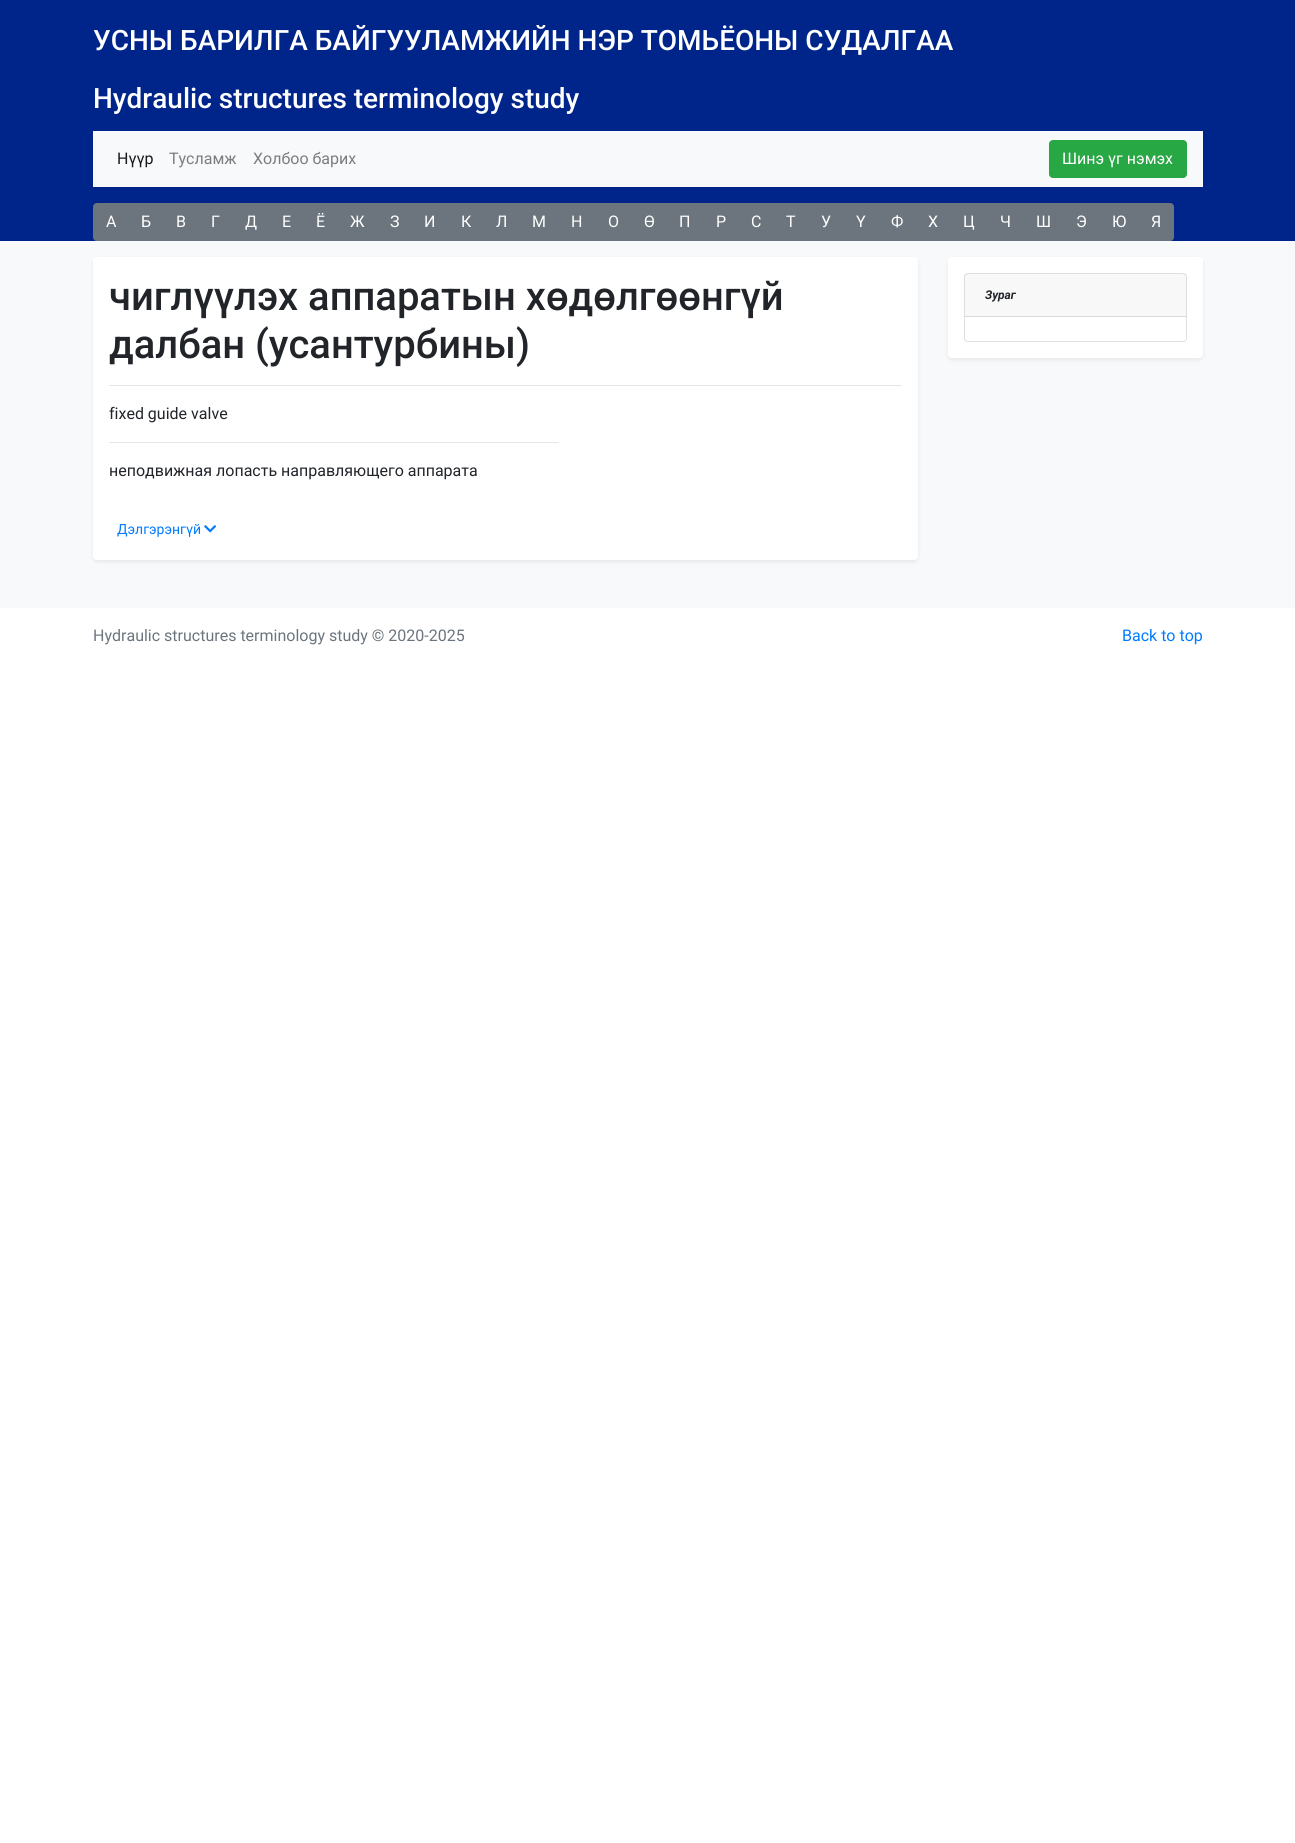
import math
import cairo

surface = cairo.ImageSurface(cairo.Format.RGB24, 1295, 1843)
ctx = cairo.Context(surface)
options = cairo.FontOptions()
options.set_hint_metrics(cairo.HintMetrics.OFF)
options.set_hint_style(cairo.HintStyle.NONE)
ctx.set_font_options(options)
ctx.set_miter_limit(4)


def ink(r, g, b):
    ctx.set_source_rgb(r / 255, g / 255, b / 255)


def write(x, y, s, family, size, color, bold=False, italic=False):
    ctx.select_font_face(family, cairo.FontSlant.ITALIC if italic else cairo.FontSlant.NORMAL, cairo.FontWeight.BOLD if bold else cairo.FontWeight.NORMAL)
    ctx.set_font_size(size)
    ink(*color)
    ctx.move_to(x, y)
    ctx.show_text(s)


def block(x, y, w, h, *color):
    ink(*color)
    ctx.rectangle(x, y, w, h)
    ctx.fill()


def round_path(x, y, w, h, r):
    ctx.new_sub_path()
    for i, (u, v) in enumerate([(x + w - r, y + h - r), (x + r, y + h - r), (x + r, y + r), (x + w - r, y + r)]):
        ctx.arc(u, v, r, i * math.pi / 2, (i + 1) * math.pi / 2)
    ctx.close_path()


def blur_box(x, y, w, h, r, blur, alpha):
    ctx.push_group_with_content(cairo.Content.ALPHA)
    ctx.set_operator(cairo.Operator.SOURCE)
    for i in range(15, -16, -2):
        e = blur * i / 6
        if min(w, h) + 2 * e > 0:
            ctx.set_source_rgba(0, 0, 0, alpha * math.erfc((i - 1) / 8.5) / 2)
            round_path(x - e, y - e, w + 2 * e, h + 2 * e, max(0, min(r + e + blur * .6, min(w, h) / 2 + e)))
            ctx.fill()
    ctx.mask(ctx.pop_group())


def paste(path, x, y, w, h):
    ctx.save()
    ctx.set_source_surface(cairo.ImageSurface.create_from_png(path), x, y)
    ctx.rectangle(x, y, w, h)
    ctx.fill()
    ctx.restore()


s1 = dict(family="Roboto Medium", size=28, color=(255, 255, 255))
s2 = dict(family="Roboto", size=16, color=(25, 25, 25))
s3 = dict(family="Roboto", size=16, color=(124, 125, 125))
s4 = dict(family="Roboto", size=16, color=(255, 255, 255))
s5 = dict(family="Roboto Medium", size=40, color=(33, 37, 41))
s6 = dict(family="Roboto", size=16, color=(33, 37, 41))
s7 = dict(family="Roboto", size=14, color=(0, 123, 255))
s8 = dict(family="Roboto", size=12, color=(33, 37, 41), bold=True, italic=True)
s9 = dict(family="Roboto", size=16, color=(108, 117, 125))
s10 = dict(family="Roboto", size=16, color=(0, 123, 255))

ink(255, 255, 255)
ctx.paint()
block(0, 0, 1295, 241, 0, 37, 138)
write(93, 50, "УСНЫ БАРИЛГА БАЙГУУЛАМЖИЙН НЭР ТОМЬЁОНЫ СУДАЛГАА", **s1)
write(93, 108, "Hydraulic structures terminology study", **s1)
block(93, 131, 1110, 56, 248, 249, 250)
write(117, 164, "Нүүр", **s2)
write(169, 164, "Тусламж", **s3)
write(253, 164, "Холбоо барих", **s3)
ink(40, 167, 69)
round_path(1049.5, 140.5, 137, 37, 3.5)
ctx.fill_preserve()
ctx.set_line_width(1)
ctx.stroke()
write(1062, 164, "Шинэ үг нэмэх", **s4)
ink(108, 117, 125)
ctx.new_path()
ctx.move_to(97, 203.5)
ctx.line_to(128.5, 203.5)
ctx.line_to(128.5, 240.5)
ctx.line_to(97, 240.5)
ctx.curve_to(95, 240.5, 93.5, 239, 93.5, 237)
ctx.line_to(93.5, 207)
ctx.curve_to(93.5, 205, 95, 203.5, 97, 203.5)
ctx.close_path()
ctx.fill_preserve()
ctx.stroke()
write(106, 227, "А", **s4)
block(129, 203, 1009, 38, 108, 117, 125)
write(141, 227, "Б", **s4)
write(176, 227, "В", **s4)
write(211, 227, "Г", **s4)
write(245, 227, "Д", **s4)
write(282, 227, "Е", **s4)
write(316, 227, "Ё", **s4)
write(350, 227, "Ж", **s4)
write(390, 227, "З", **s4)
write(424, 227, "И", **s4)
write(461, 227, "К", **s4)
write(496, 227, "Л", **s4)
write(532, 227, "М", **s4)
write(571, 227, "Н", **s4)
write(608, 227, "О", **s4)
write(644, 227, "Ө", **s4)
write(679, 227, "П", **s4)
write(716, 227, "Р", **s4)
write(751, 227, "С", **s4)
write(786, 227, "Т", **s4)
write(821, 227, "У", **s4)
write(856, 227, "Ү", **s4)
write(891, 227, "Ф", **s4)
write(928, 227, "Х", **s4)
write(963, 227, "Ц", **s4)
write(1000, 227, "Ч", **s4)
write(1036, 227, "Ш", **s4)
write(1076, 227, "Э", **s4)
write(1112, 227, "Ю", **s4)
ink(108, 117, 125)
ctx.new_path()
ctx.move_to(1138.5, 203.5)
ctx.line_to(1170, 203.5)
ctx.curve_to(1172, 203.5, 1173.5, 205, 1173.5, 207)
ctx.line_to(1173.5, 237)
ctx.curve_to(1173.5, 239, 1172, 240.5, 1170, 240.5)
ctx.line_to(1138.5, 240.5)
ctx.close_path()
ctx.fill_preserve()
ctx.stroke()
write(1151, 227, "Я", **s4)
block(0, 241, 1295, 367, 248, 249, 250)
ink(0, 0, 0)
blur_box(93, 259, 825, 303, 4, 2, 0.07)
ink(255, 255, 255)
round_path(93, 257, 825, 303, 4)
ctx.fill()
write(109, 310, "чиглүүлэх аппаратын хөдөлгөөнгүй", **s5)
write(109, 358, "далбан (усантурбины)", **s5)
block(109, 385, 793, 1, 230, 230, 230)
write(109, 419, "fixed guide valve", **s6)
block(109, 442, 450, 1, 230, 230, 230)
write(109, 476, "неподвижная лопасть направляющего аппарата", **s6)
write(117, 534, "Дэлгэрэнгүй", **s7)
paste("pic1.png", 204, 525, 12, 8)
ink(0, 0, 0)
blur_box(948, 259, 255, 101, 4, 2, 0.07)
ink(255, 255, 255)
round_path(948, 257, 255, 101, 4)
ctx.fill()
round_path(964.5, 273.5, 222, 68, 3.5)
ink(223, 223, 223)
ctx.stroke()
ctx.set_source_rgba(0, 0, 0, 0.03)
ctx.rectangle(965, 274, 221, 42)
ctx.fill()
block(965, 316, 221, 1, 216, 216, 216)
write(985, 299, "Зураг", **s8)
write(93, 641, "Hydraulic structures terminology study © 2020-2025", **s9)
write(1122, 641, "Back to top", **s10)
surface.write_to_png("screenshot.png")
